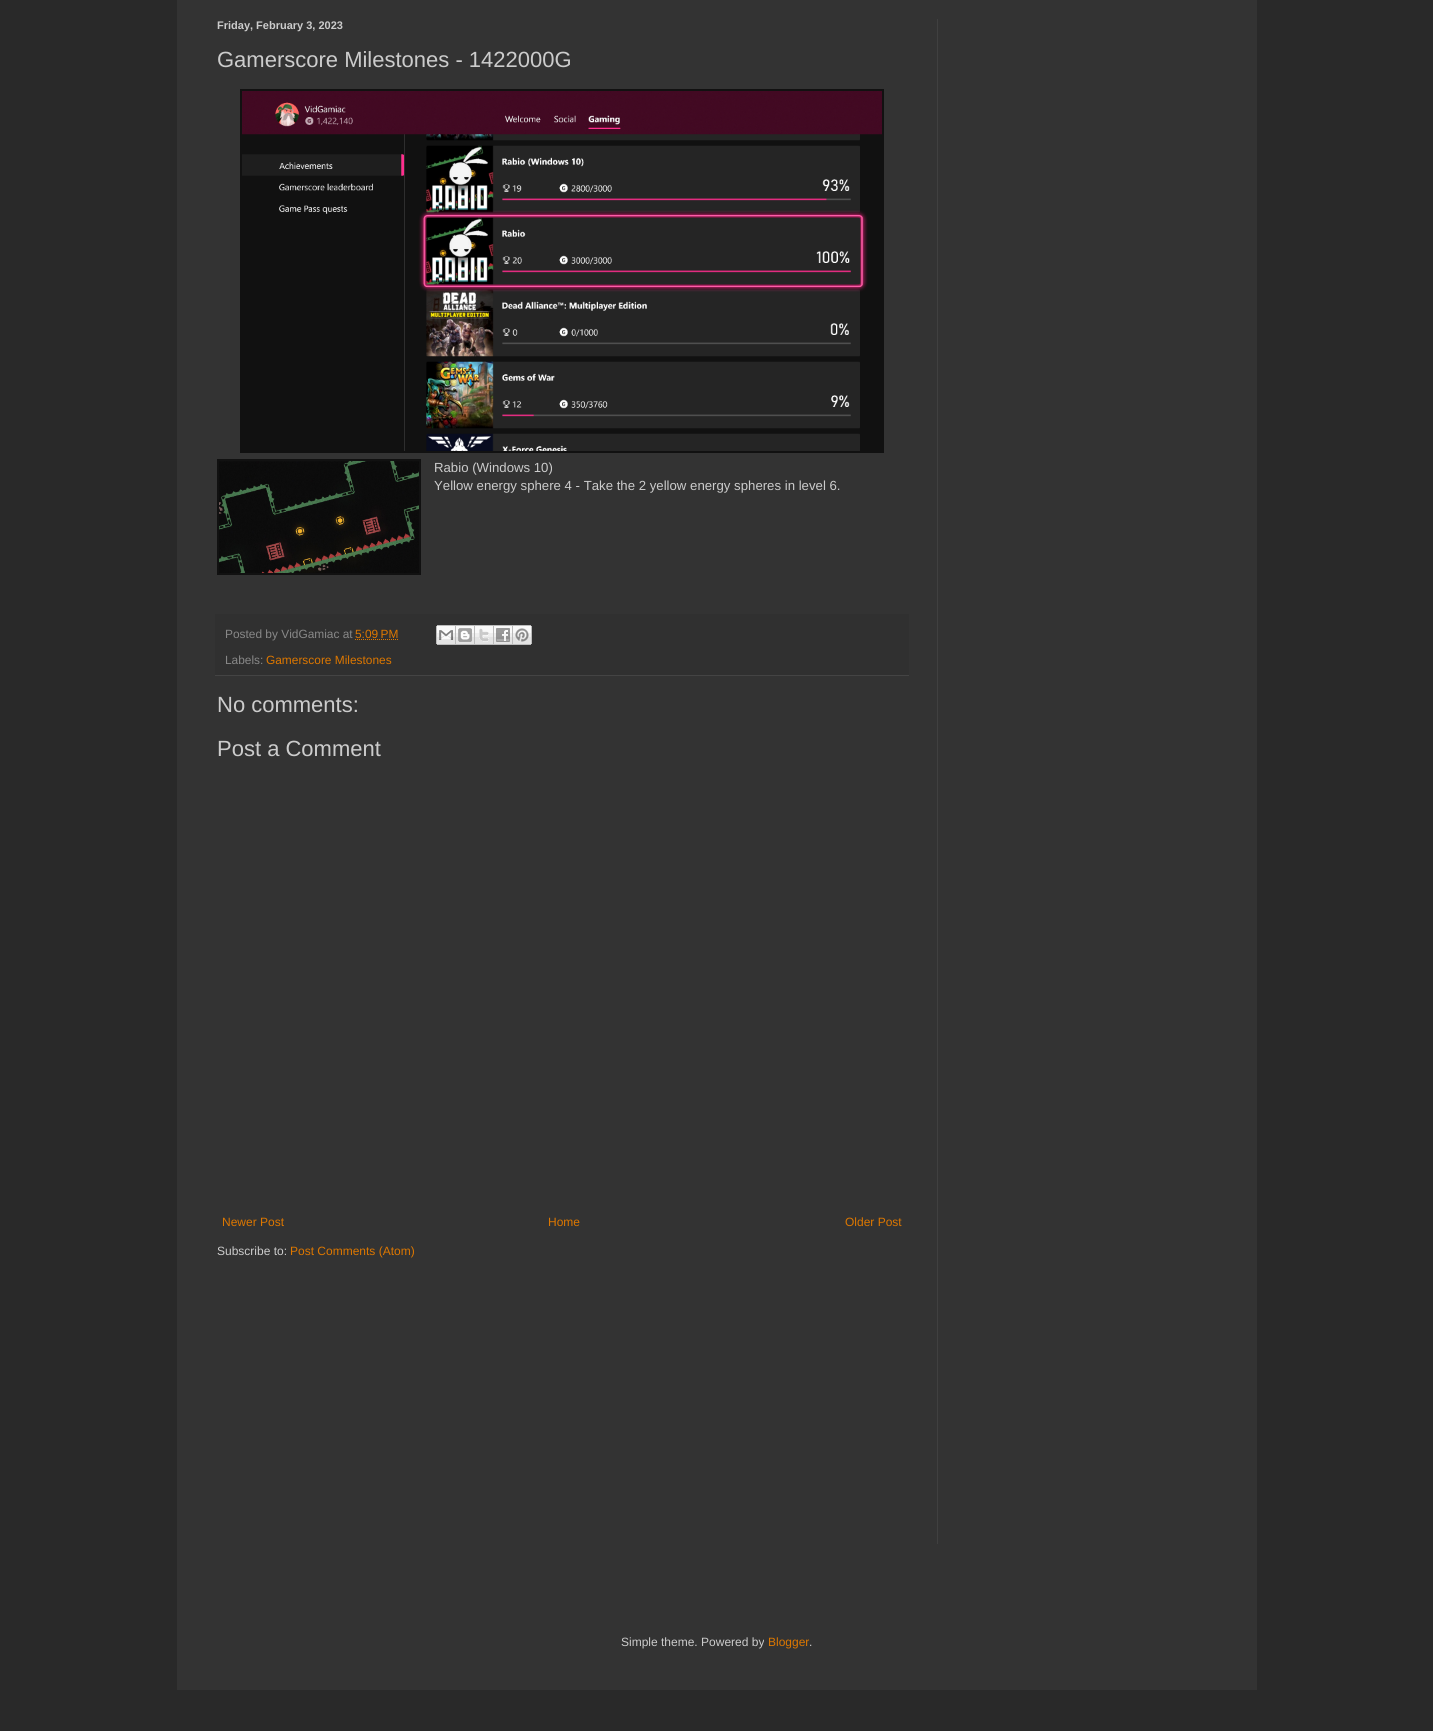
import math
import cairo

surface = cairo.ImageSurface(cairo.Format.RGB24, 1433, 1731)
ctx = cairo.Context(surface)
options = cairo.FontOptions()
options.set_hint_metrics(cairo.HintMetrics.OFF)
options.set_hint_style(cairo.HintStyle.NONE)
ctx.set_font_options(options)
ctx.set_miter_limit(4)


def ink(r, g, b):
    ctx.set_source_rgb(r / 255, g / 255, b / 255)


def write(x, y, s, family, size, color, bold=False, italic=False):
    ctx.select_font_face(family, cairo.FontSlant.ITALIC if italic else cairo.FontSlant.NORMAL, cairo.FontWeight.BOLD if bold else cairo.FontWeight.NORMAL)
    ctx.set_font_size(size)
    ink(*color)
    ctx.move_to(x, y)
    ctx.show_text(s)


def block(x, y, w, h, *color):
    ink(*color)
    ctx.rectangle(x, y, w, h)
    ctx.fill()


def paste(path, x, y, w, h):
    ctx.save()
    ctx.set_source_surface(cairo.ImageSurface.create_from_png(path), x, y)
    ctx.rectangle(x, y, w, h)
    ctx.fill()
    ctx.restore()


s1 = dict(family="Liberation Sans", size=11, color=(204, 204, 204), bold=True)
s2 = dict(family="Liberation Sans", size=22, color=(204, 204, 204))
s3 = dict(family="Liberation Sans", size=13.2, color=(204, 204, 204))
s4 = dict(family="Liberation Sans", size=11.9, color=(136, 136, 136))
s5 = dict(family="Liberation Sans", size=11.9, color=(221, 119, 0))
s6 = dict(family="Liberation Sans", size=12, color=(221, 119, 0))
s7 = dict(family="Liberation Sans", size=12, color=(204, 204, 204))

ink(41, 41, 41)
ctx.paint()
block(177, 0, 1080, 1690, 51, 51, 51)
write(217, 29, "Friday, February 3, 2023", **s1)
write(217, 67, "Gamerscore Milestones - 1422000G", **s2)
block(240, 89, 644, 364, 17, 17, 17)
paste("pic1.png", 242, 91, 640, 360)
block(217, 459, 204, 116, 17, 17, 17)
paste("pic2.png", 219, 461, 200, 112)
write(434, 472, "Rabio (Windows 10)", **s3)
write(434, 490, "Yellow energy sphere 4 - Take the 2 yellow energy spheres in level 6.", **s3)
block(215, 614, 694, 61, 48, 48, 48)
block(215, 675, 694, 1, 68, 68, 68)
write(225, 638, "Posted by VidGamiac at", **s4)
write(355, 638, "5:09 PM", **s5)
ctx.new_path()
ctx.move_to(355, 639.5)
ctx.line_to(398.5, 639.5)
ctx.set_line_width(1)
ctx.set_dash([1, 1])
ctx.stroke()
paste("pic3.png", 436, 625, 20, 20)
paste("pic4.png", 456, 625, 19, 20)
paste("pic5.png", 475, 625, 19, 20)
paste("pic6.png", 494, 625, 19, 20)
paste("pic7.png", 513, 625, 19, 20)
write(225, 664, "Labels:", **s4)
write(266, 664, "Gamerscore Milestones", **s5)
write(217, 712, "No comments:", **s2)
write(217, 756, "Post a Comment", **s2)
write(222, 1226, "Newer Post", **s6)
write(548, 1226, "Home", **s6)
write(845, 1226, "Older Post", **s6)
write(217, 1255, "Subscribe to:", **s7)
write(290, 1255, "Post Comments (Atom)", **s6)
block(937, 19, 1, 1525, 64, 64, 64)
write(621, 1646, "Simple theme. Powered by", **s7)
write(768, 1646, "Blogger", **s6)
write(809, 1646, ".", **s7)
surface.write_to_png("screenshot.png")
